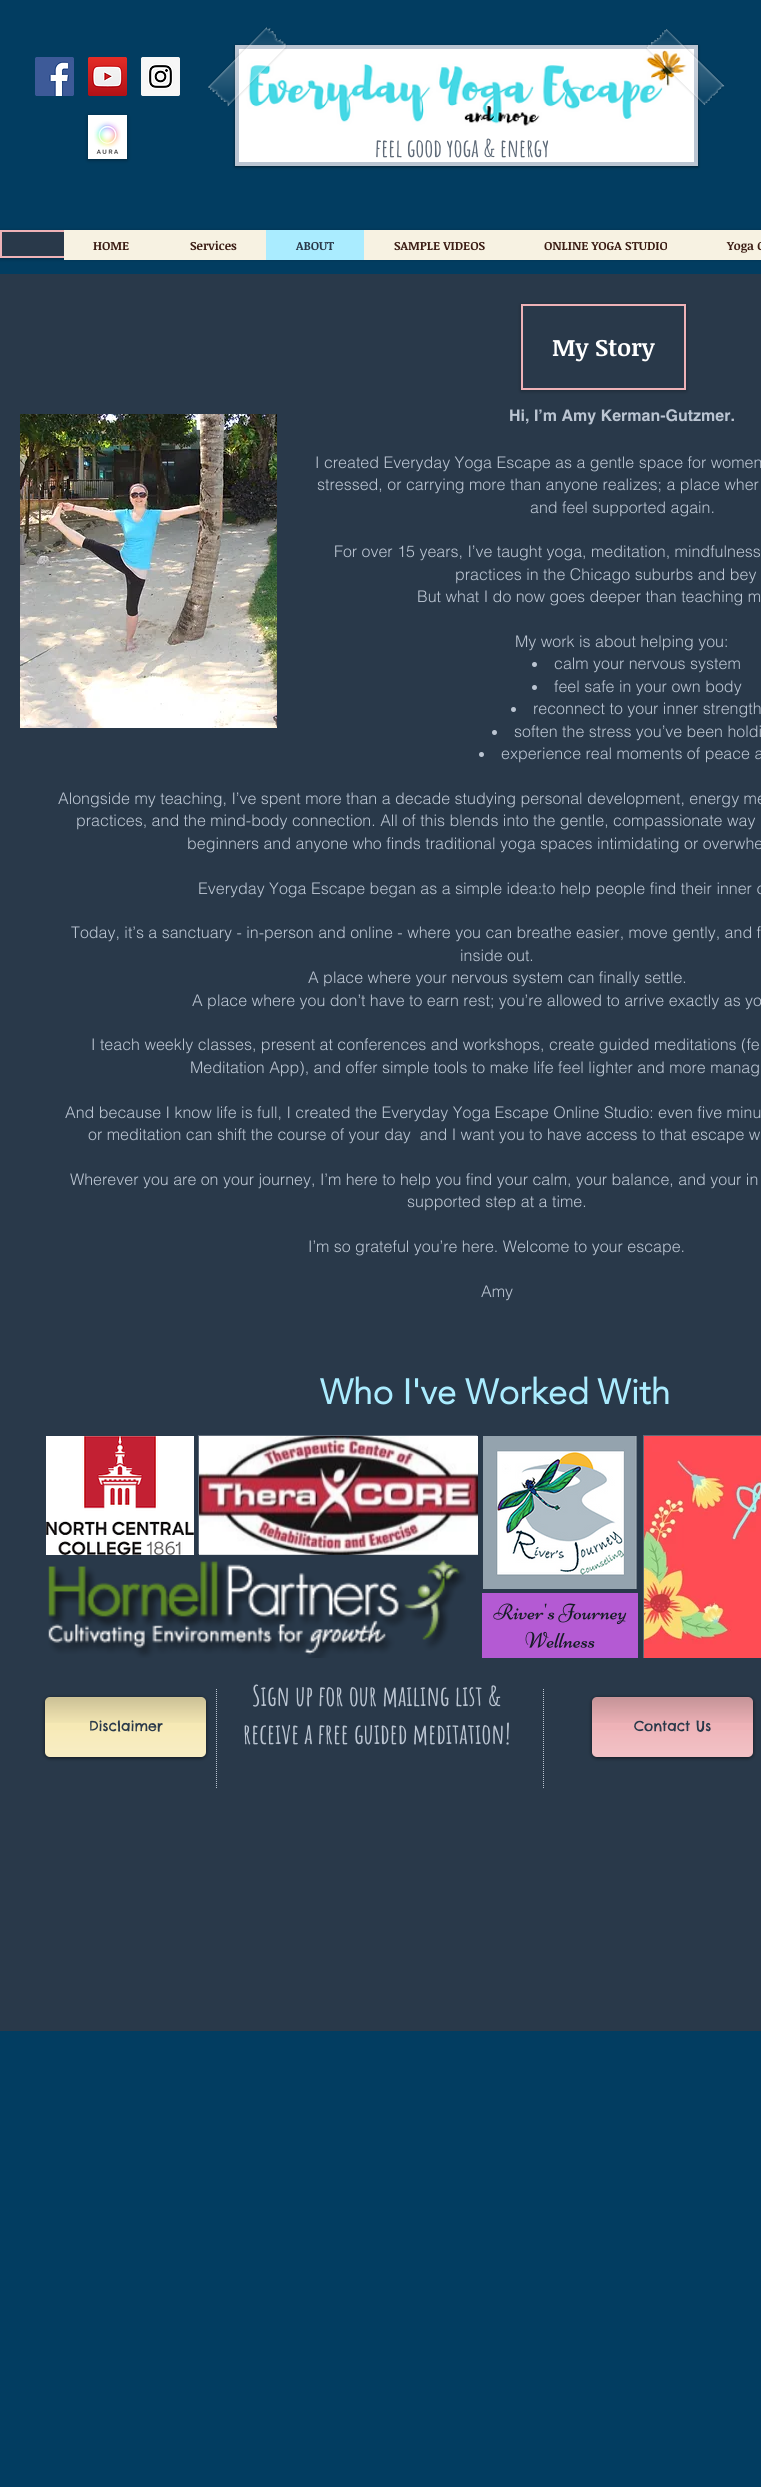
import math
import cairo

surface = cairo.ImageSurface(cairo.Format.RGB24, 761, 2487)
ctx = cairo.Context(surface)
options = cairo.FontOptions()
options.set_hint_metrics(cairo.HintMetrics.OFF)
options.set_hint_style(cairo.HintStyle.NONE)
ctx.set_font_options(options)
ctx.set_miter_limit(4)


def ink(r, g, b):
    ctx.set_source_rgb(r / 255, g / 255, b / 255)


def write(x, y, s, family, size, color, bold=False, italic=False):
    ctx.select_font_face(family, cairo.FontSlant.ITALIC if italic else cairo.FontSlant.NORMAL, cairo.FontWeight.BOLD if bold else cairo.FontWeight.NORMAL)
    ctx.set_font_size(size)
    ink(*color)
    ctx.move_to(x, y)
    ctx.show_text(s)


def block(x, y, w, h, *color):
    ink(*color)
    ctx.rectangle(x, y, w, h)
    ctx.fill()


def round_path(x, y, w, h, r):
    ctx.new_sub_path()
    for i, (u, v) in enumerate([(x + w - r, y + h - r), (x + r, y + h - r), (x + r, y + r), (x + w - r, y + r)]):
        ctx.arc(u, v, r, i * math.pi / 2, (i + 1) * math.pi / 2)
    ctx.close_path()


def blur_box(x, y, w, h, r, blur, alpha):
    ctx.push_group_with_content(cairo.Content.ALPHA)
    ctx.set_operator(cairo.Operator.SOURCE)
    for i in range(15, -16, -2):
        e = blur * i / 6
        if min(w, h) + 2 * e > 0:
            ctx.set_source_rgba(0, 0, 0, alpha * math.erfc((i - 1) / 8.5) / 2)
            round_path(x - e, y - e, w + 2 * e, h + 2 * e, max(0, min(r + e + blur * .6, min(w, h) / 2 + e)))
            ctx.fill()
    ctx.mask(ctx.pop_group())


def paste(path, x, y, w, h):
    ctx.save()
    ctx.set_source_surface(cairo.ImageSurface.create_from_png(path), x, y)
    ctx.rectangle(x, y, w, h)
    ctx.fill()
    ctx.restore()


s1 = dict(family="Amatic SC", size=25, color=(93, 105, 119), bold=True)
s2 = dict(family="Noticia Text", size=12, color=(58, 28, 19), bold=True)
s3 = dict(family="Noticia Text", size=12, color=(41, 57, 74), bold=True)
s4 = dict(family="Noticia Text", size=24, color=(255, 255, 255), bold=True)
s5 = dict(family="helvetica", size=16, color=(187, 197, 210), bold=True)
s6 = dict(family="helvetica Light", size=16, color=(187, 197, 210))
s7 = dict(family="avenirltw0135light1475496", size=35, color=(170, 236, 255), bold=True)
s8 = dict(family="Chelsea Market", size=14, color=(41, 57, 74))
s9 = dict(family="Amatic SC", size=28, color=(187, 197, 210), bold=True)

ink(2, 61, 97)
ctx.paint()
paste("pic1.png", 35, 57, 39, 39)
paste("pic2.png", 88, 57, 39, 39)
paste("pic3.png", 141, 57, 39, 39)
ink(0, 0, 0)
blur_box(235, 46, 463, 121, 0, 1.5, 0.5)
ctx.rectangle(237, 47, 459, 117)
ink(187, 197, 210)
ctx.set_line_width(4)
ctx.stroke()
paste("pic6.png", 239, 49, 455, 113)
paste("pic4.png", 208, 27, 79, 80)
paste("pic5.png", 646, 29, 79, 76)
ink(0, 0, 0)
blur_box(88, 116, 39, 44, 0, 2, 0.4)
block(88, 115, 39, 44, 255, 255, 255)
paste("pic7.png", 94, 121, 27, 33)
write(375, 157, "feel good yoga & energy", **s1)
ink(0, 0, 0)
blur_box(0, 231, 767, 28, 0, 2, 0.3)
block(2, 232, 62, 24, 41, 57, 74)
ctx.rectangle(1, 231, 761, 26)
ink(238, 178, 183)
ctx.set_line_width(2)
ctx.stroke()
block(64, 230, 697, 30, 247, 242, 226)
write(93, 250, "HOME", **s2)
write(190, 250, "Services", **s2)
block(266, 230, 98, 30, 170, 236, 255)
write(296, 250, "ABOUT", **s3)
write(394, 250, "SAMPLE VIDEOS", **s2)
write(544, 250, "ONLINE YOGA STUDIO", **s2)
write(727, 250, "Yoga C", **s2)
block(0, 274, 761, 1757, 41, 57, 74)
ctx.save()
ctx.set_fill_rule(cairo.FillRule.EVEN_ODD)
ctx.new_path()
ctx.move_to(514, 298)
ctx.line_to(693, 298)
ctx.line_to(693, 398)
ctx.line_to(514, 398)
ctx.close_path()
ctx.move_to(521, 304)
ctx.line_to(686, 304)
ctx.line_to(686, 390)
ctx.line_to(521, 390)
ctx.close_path()
ctx.clip()
ink(0, 0, 0)
blur_box(521, 305, 165, 86, 0, 2, 0.3)
ctx.restore()
ctx.rectangle(522, 305, 163, 84)
ink(238, 178, 183)
ctx.stroke()
write(552, 356, "My Story", **s4)
paste("pic8.png", 20, 414, 257, 314)
write(509, 421, "Hi, I’m Amy Kerman-Gutzmer.", **s5)
write(315, 468, "I created Everyday Yoga Escape as a gentle space for women", **s6)
write(317, 490, "stressed, or carrying more than anyone realizes; a place wher", **s6)
write(530, 513, "and feel supported again.", **s6)
write(334, 557, "For over 15 years, I’ve taught yoga, meditation, mindfulness", **s6)
write(455, 580, "practices in the Chicago suburbs and bey", **s6)
write(417, 602, "But what I do now goes deeper than teaching m", **s6)
write(515, 647, "My work is about helping you:", **s6)
ctx.new_path()
ctx.arc(534.5, 664.5, 2.5, 0, 2 * math.pi)
ctx.fill()
write(554, 669, "calm your nervous system", **s6)
ctx.new_path()
ctx.arc(534.5, 687.5, 2.5, 0, 2 * math.pi)
ctx.fill()
write(554, 692, "feel safe in your own body", **s6)
ctx.new_path()
ctx.arc(513.5, 709.5, 2.5, 0, 2 * math.pi)
ctx.fill()
write(533, 714, "reconnect to your inner strength", **s6)
ctx.new_path()
ctx.arc(494.5, 732.5, 2.5, 0, 2 * math.pi)
ctx.fill()
write(514, 737, "soften the stress you’ve been holdi", **s6)
ctx.new_path()
ctx.arc(481.5, 754.5, 2.5, 0, 2 * math.pi)
ctx.fill()
write(501, 759, "experience real moments of peace a", **s6)
write(58, 804, "Alongside my teaching, I’ve spent more than a decade studying personal development, energy me", **s6)
write(76, 826, "practices, and the mind-body connection. All of this blends into the gentle, compassionate way", **s6)
write(187, 849, "beginners and anyone who finds traditional yoga spaces intimidating or overwhe", **s6)
write(198, 894, "Everyday Yoga Escape began as a simple idea:to help people find their inner c", **s6)
write(71, 938, "Today, it’s a sanctuary - in-person and online - where you can breathe easier, move gently, and f", **s6)
write(460, 961, "inside out.", **s6)
write(308, 983, "A place where your nervous system can finally settle.", **s6)
write(192, 1006, "A place where you don’t have to earn rest; you’re allowed to arrive exactly as yo", **s6)
write(91, 1050, "I teach weekly classes, present at conferences and workshops, create guided meditations (fe", **s6)
write(190, 1073, "Meditation App), and offer simple tools to make life feel lighter and more manag", **s6)
write(65, 1118, "And because I know life is full, I created the Everyday Yoga Escape Online Studio: even five minu", **s6)
write(88, 1140, "or meditation can shift the course of your day  and I want you to have access to that escape w", **s6)
write(70, 1185, "Wherever you are on your journey, I’m here to help you find your calm, your balance, and your in", **s6)
write(407, 1207, "supported step at a time.", **s6)
write(308, 1252, "I’m so grateful you’re here. Welcome to your escape.", **s6)
write(481, 1297, "Amy", **s6)
write(320, 1404, "Who I've Worked With", **s7)
paste("pic9.png", 46, 1436, 148, 119)
block(198, 1435, 279, 119, 93, 105, 119)
paste("pic10.png", 199, 1436, 279, 119)
paste("pic11.png", 48, 1560, 418, 98)
paste("pic12.png", 483, 1436, 154, 153)
block(482, 1593, 156, 65, 180, 90, 211)
paste("pic13.png", 493, 1603, 134, 22)
paste("pic14.png", 525, 1631, 70, 17)
block(643, 1435, 118, 223, 93, 105, 119)
paste("pic15.png", 644, 1436, 117, 222)
ink(0, 0, 0)
blur_box(45, 1698, 161, 60, 5, 2, 0.6)
ink(246, 233, 181)
round_path(45, 1697, 161, 60, 5)
ctx.fill()
paste("pic16.png", 45, 1697, 161, 26)
paste("pic17.png", 45, 1730, 161, 27)
write(89, 1731, "Disclaimer", **s8)
ctx.new_path()
ctx.move_to(216.5, 1689)
ctx.line_to(216.5, 1789)
ink(187, 197, 210)
ctx.set_line_width(1)
ctx.set_dash([1, 1])
ctx.stroke()
write(252, 1706, "Sign up for our mailing list &", **s9)
write(243, 1744, "receive a free guided meditation!", **s9)
ctx.new_path()
ctx.move_to(543.5, 1689)
ctx.line_to(543.5, 1789)
ctx.stroke()
ink(0, 0, 0)
blur_box(592, 1698, 161, 60, 5, 2, 0.6)
ink(238, 178, 183)
round_path(592, 1697, 161, 60, 5)
ctx.fill()
paste("pic18.png", 592, 1697, 161, 26)
paste("pic19.png", 592, 1730, 161, 27)
write(634, 1731, "Contact Us", **s8)
surface.write_to_png("screenshot.png")
